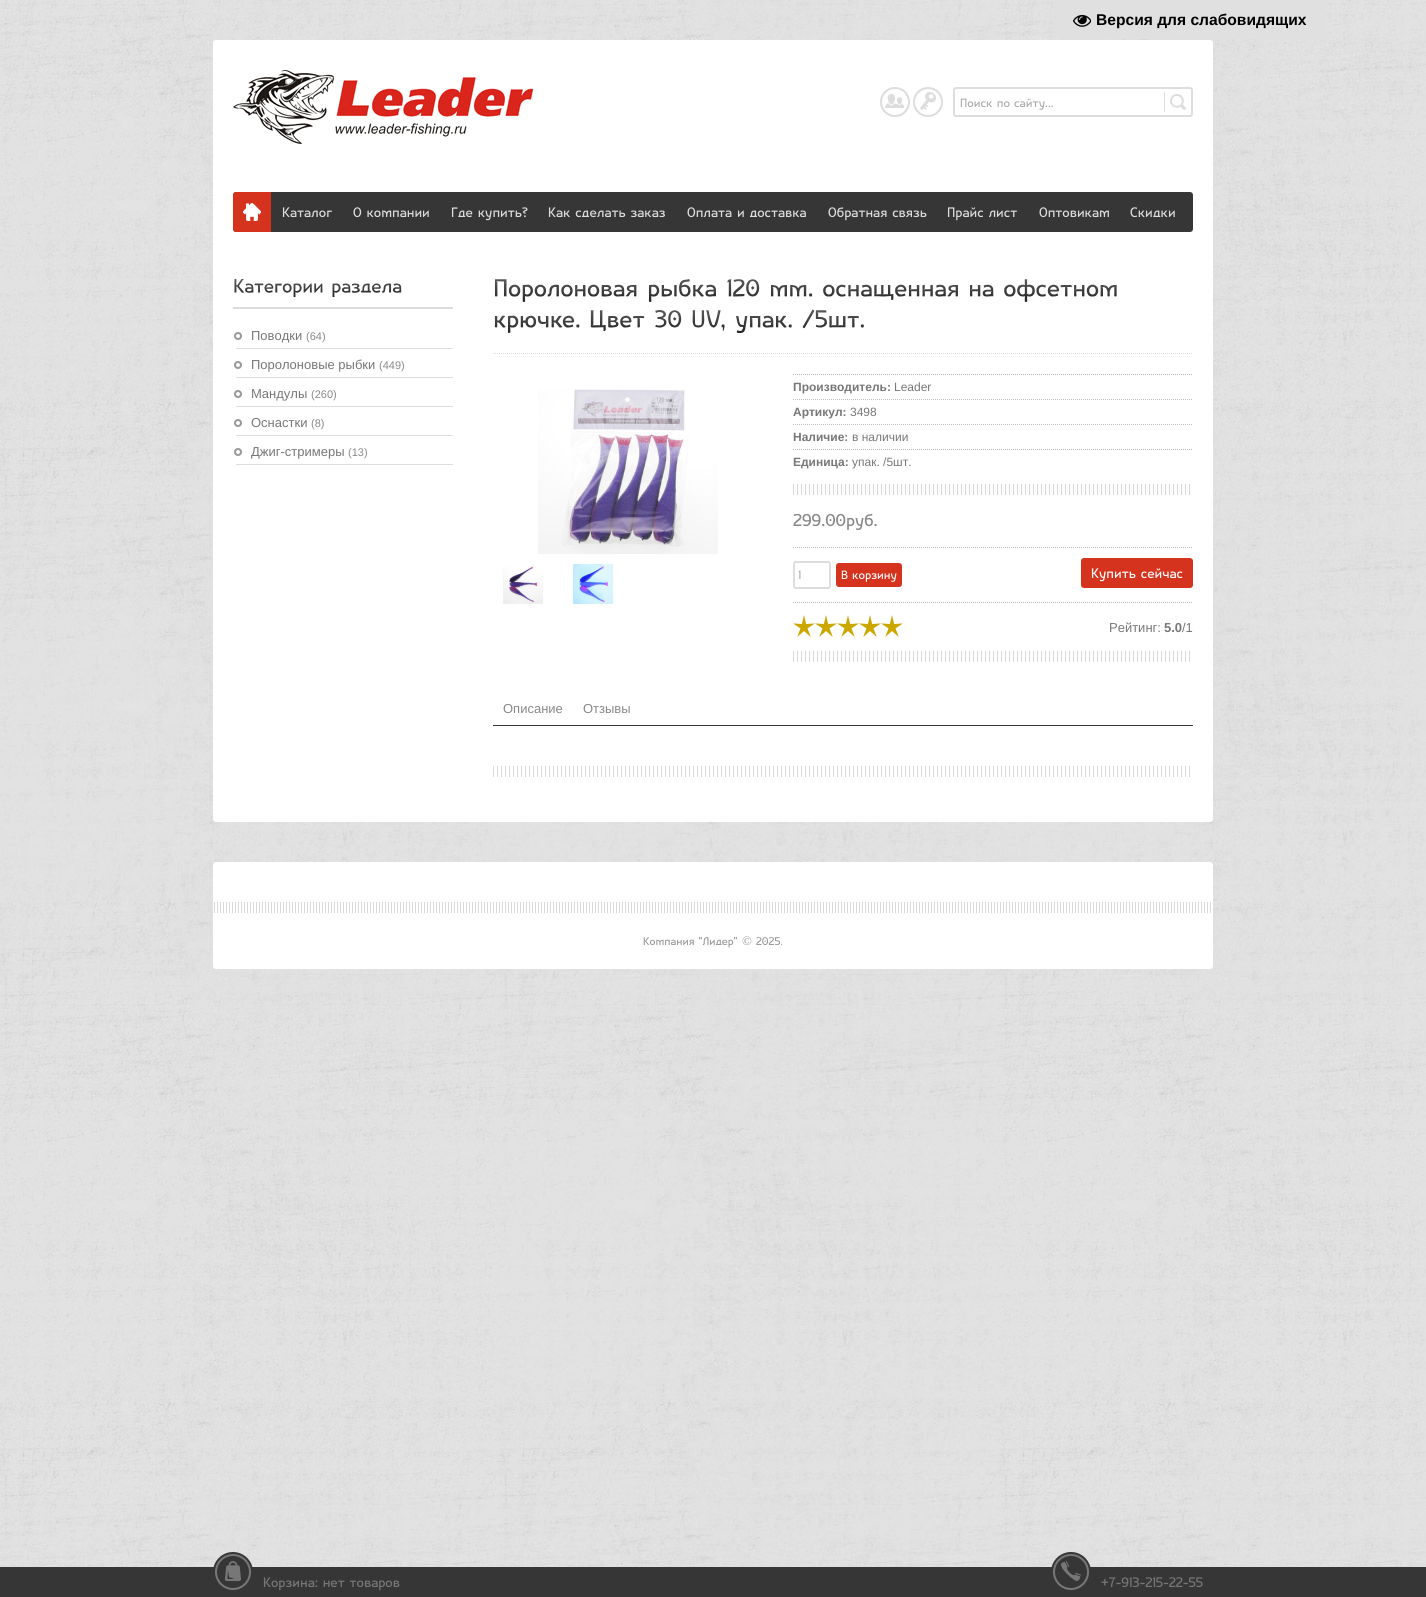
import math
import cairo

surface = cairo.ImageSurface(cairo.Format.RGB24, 1426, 1597)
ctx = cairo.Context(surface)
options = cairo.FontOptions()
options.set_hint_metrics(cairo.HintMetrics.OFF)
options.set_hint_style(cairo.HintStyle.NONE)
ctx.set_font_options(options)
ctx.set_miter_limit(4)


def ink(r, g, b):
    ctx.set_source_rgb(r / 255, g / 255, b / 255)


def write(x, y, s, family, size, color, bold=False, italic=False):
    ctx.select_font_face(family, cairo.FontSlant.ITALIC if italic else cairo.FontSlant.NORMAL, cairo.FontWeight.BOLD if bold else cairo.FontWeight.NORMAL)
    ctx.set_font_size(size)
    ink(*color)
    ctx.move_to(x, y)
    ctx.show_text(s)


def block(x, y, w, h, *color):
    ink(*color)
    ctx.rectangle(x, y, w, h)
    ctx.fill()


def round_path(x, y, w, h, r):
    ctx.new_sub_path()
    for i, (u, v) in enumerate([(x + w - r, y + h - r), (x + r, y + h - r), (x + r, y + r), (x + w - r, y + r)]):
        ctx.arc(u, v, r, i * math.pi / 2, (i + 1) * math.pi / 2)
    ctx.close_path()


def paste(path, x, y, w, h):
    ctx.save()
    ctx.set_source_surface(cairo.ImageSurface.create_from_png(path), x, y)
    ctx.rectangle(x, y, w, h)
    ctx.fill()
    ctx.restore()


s1 = dict(family="Liberation Sans", size=15.6, color=(0, 0, 0), bold=True)
s2 = dict(family="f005 Medium", size=14, color=(170, 170, 170))
s3 = dict(family="f005 Medium", size=16, color=(221, 221, 221))
s4 = dict(family="Liberation Sans", size=13, color=(119, 119, 119))
s5 = dict(family="Liberation Sans", size=11, color=(136, 136, 136))
s6 = dict(family="Liberation Sans", size=12, color=(119, 119, 119), bold=True)
s7 = dict(family="Liberation Sans", size=12, color=(119, 119, 119))
s8 = dict(family="f005 Medium", size=20, color=(136, 136, 136))
s9 = dict(family="f005 Medium", size=14, color=(255, 255, 255))
s10 = dict(family="f005 Medium", size=16, color=(255, 255, 255))
s11 = dict(family="Liberation Sans", size=13, color=(119, 119, 119), bold=True)
s12 = dict(family="Liberation Sans", size=13, color=(136, 136, 136))
s13 = dict(family="f005 Medium", size=13, color=(153, 153, 153))
s14 = dict(family="Liberation Serif", size=13, color=(153, 153, 153))
s15 = dict(family="f005 Medium", size=16, color=(119, 119, 119))

ink(255, 255, 255)
ctx.paint()
paste("pic1.png", 0, 0, 1426, 1567)
ink(224, 224, 224)
ctx.new_path()
ctx.move_to(1053, 0)
ctx.line_to(1326, 0)
ctx.line_to(1326, 27)
ctx.curve_to(1326, 33.5, 1320.5, 39, 1314, 39)
ctx.line_to(1065, 39)
ctx.curve_to(1058.5, 39, 1053, 33.5, 1053, 27)
ctx.close_path()
ctx.fill()
paste("pic2.png", 1073, 14, 18, 13)
write(1096, 25, "Версия для слабовидящих", **s1)
ink(255, 255, 255)
round_path(213, 40, 1000, 782, 3)
ctx.fill()
paste("pic3.png", 233, 70, 300, 74)
ink(221, 221, 221)
ctx.arc(895, 102, 15, 0, 2 * math.pi)
ctx.fill()
paste("pic4.png", 880, 87, 30, 30)
ctx.arc(895, 102, 14, 0, 2 * math.pi)
ctx.stroke()
ctx.arc(928, 102, 15, 0, 2 * math.pi)
ctx.fill()
paste("pic5.png", 913, 87, 30, 30)
ctx.arc(928, 102, 14, 0, 2 * math.pi)
ctx.stroke()
round_path(954, 88, 238, 28, 2)
ctx.stroke()
write(960, 107, "Поиск по сайту...", **s2)
block(1164, 92, 1, 20, 221, 221, 221)
paste("pic6.png", 1170, 94, 16, 16)
ink(54, 54, 54)
round_path(233, 192, 960, 40, 3)
ctx.fill()
ink(213, 51, 30)
ctx.new_path()
ctx.move_to(236, 192)
ctx.line_to(271, 192)
ctx.line_to(271, 232)
ctx.line_to(236, 232)
ctx.curve_to(234.5, 232, 233, 230.5, 233, 229)
ctx.line_to(233, 195)
ctx.curve_to(233, 193.5, 234.5, 192, 236, 192)
ctx.close_path()
ctx.fill()
paste("pic7.png", 243, 203, 18, 18)
write(282, 217, "Каталог", **s3)
write(353, 217, "О компании", **s3)
write(451, 217, "Где купить?", **s3)
write(548, 217, "Как сделать заказ", **s3)
write(687, 217, "Оплата и доставка", **s3)
write(828, 217, "Обратная связь", **s3)
write(947, 217, "Прайс лист", **s3)
write(1039, 217, "Оптовикам", **s3)
write(1130, 217, "Скидки", **s3)
block(233, 307, 220, 2, 221, 221, 221)
paste("pic8.png", 234, 279, 89, 18)
paste("pic9.png", 332, 283, 70, 14)
paste("pic10.png", 234, 332, 8, 8)
block(236, 348, 217, 1, 221, 221, 221)
write(251, 340, "Поводки", **s4)
write(306, 340, "(64)", **s5)
paste("pic10.png", 234, 361, 8, 8)
block(236, 377, 217, 1, 221, 221, 221)
write(251, 369, "Поролоновые рыбки", **s4)
write(379, 369, "(449)", **s5)
paste("pic10.png", 234, 390, 8, 8)
block(236, 406, 217, 1, 221, 221, 221)
write(251, 398, "Мандулы", **s4)
write(311, 398, "(260)", **s5)
paste("pic10.png", 234, 419, 8, 8)
block(236, 435, 217, 1, 221, 221, 221)
write(251, 427, "Оснастки", **s4)
write(311, 427, "(8)", **s5)
paste("pic10.png", 234, 448, 8, 8)
block(236, 464, 217, 1, 221, 221, 221)
write(251, 456, "Джиг-стримеры", **s4)
write(348, 456, "(13)", **s5)
ctx.new_path()
ctx.move_to(493, 353.5)
ctx.line_to(1193, 353.5)
ink(221, 221, 221)
ctx.set_line_width(1)
ctx.set_dash([1, 1])
ctx.stroke()
paste("pic11.png", 494, 279, 143, 23)
paste("pic12.png", 648, 279, 68, 23)
paste("pic13.png", 727, 279, 33, 18)
paste("pic14.png", 770, 285, 43, 12)
paste("pic15.png", 823, 284, 135, 16)
paste("pic16.png", 970, 284, 24, 13)
paste("pic17.png", 1004, 279, 113, 23)
paste("pic18.png", 494, 315, 86, 18)
paste("pic19.png", 590, 310, 55, 21)
paste("pic20.png", 655, 310, 27, 18)
paste("pic21.png", 692, 310, 33, 21)
paste("pic22.png", 736, 315, 56, 18)
paste("pic23.png", 802, 309, 62, 20)
paste("pic24.png", 538, 389, 180, 165)
paste("pic25.png", 503, 566, 40, 38)
paste("pic26.png", 572, 564, 42, 40)
ctx.new_path()
ctx.move_to(793, 374.5)
ctx.line_to(1193, 374.5)
ink(187, 187, 187)
ctx.stroke()
write(793, 391, "Производитель:", **s6)
write(894, 391, "Leader", **s7)
ctx.new_path()
ctx.move_to(793, 399.5)
ctx.line_to(1193, 399.5)
ink(187, 187, 187)
ctx.stroke()
write(793, 416, "Артикул:", **s6)
write(850, 416, "3498", **s7)
ctx.new_path()
ctx.move_to(793, 424.5)
ctx.line_to(1193, 424.5)
ink(187, 187, 187)
ctx.stroke()
write(793, 441, "Наличие:", **s6)
write(852, 441, "в наличии", **s7)
ctx.new_path()
ctx.move_to(793, 449.5)
ctx.line_to(1193, 449.5)
ink(187, 187, 187)
ctx.stroke()
write(793, 466, "Единица:", **s6)
write(852, 466, "упак. /5шт.", **s7)
paste("pic27.png", 793, 484, 397, 11)
write(793, 526, "299.00руб.", **s8)
ctx.new_path()
ctx.move_to(793, 547.5)
ctx.line_to(1193, 547.5)
ink(187, 187, 187)
ctx.stroke()
ctx.new_path()
ctx.move_to(793, 602.5)
ctx.line_to(1193, 602.5)
ctx.stroke()
round_path(794, 562, 36, 26, 2)
ink(221, 221, 221)
ctx.set_line_width(2)
ctx.set_dash([])
ctx.stroke()
write(798, 579, "1", **s2)
ink(213, 51, 30)
round_path(836, 563, 66, 24, 3)
ctx.fill()
write(841, 579, "В корзину", **s9)
ink(213, 51, 30)
round_path(1081, 558, 112, 30, 3)
ctx.fill()
write(1091, 578, "Купить сейчас", **s10)
paste("pic28.png", 793, 615, 110, 22)
write(1109, 632, "Рейтинг:", **s4)
write(1164, 632, "5.0", **s11)
write(1182, 632, "/1", **s4)
paste("pic27.png", 793, 651, 397, 11)
block(493, 725, 700, 1, 54, 54, 54)
write(503, 713, "Описание", **s12)
write(583, 713, "Отзывы", **s12)
paste("pic29.png", 493, 766, 697, 11)
ink(255, 255, 255)
round_path(213, 862, 1000, 107, 3)
ctx.fill()
paste("pic30.png", 214, 902, 997, 11)
write(643, 945, "Компания \"Лидер\"", **s13)
write(742, 945, "©", **s14)
write(756, 945, "2025.", **s13)
block(0, 1567, 1426, 30, 54, 54, 54)
ctx.new_path()
ctx.arc(233, 1572, 20, 0, 2 * math.pi)
ctx.fill()
paste("pic31.png", 225, 1561, 16, 20)
ctx.arc(233, 1572, 17, 0, 2 * math.pi)
ink(119, 119, 119)
ctx.stroke()
write(263, 1587, "Корзина: нет товаров", **s15)
ink(54, 54, 54)
ctx.new_path()
ctx.arc(1071, 1572, 20, 0, 2 * math.pi)
ctx.fill()
paste("pic32.png", 1061, 1561, 20, 20)
ctx.arc(1071, 1572, 17, 0, 2 * math.pi)
ink(119, 119, 119)
ctx.stroke()
write(1101, 1587, "+7-913-215-22-55", **s15)
surface.write_to_png("screenshot.png")
